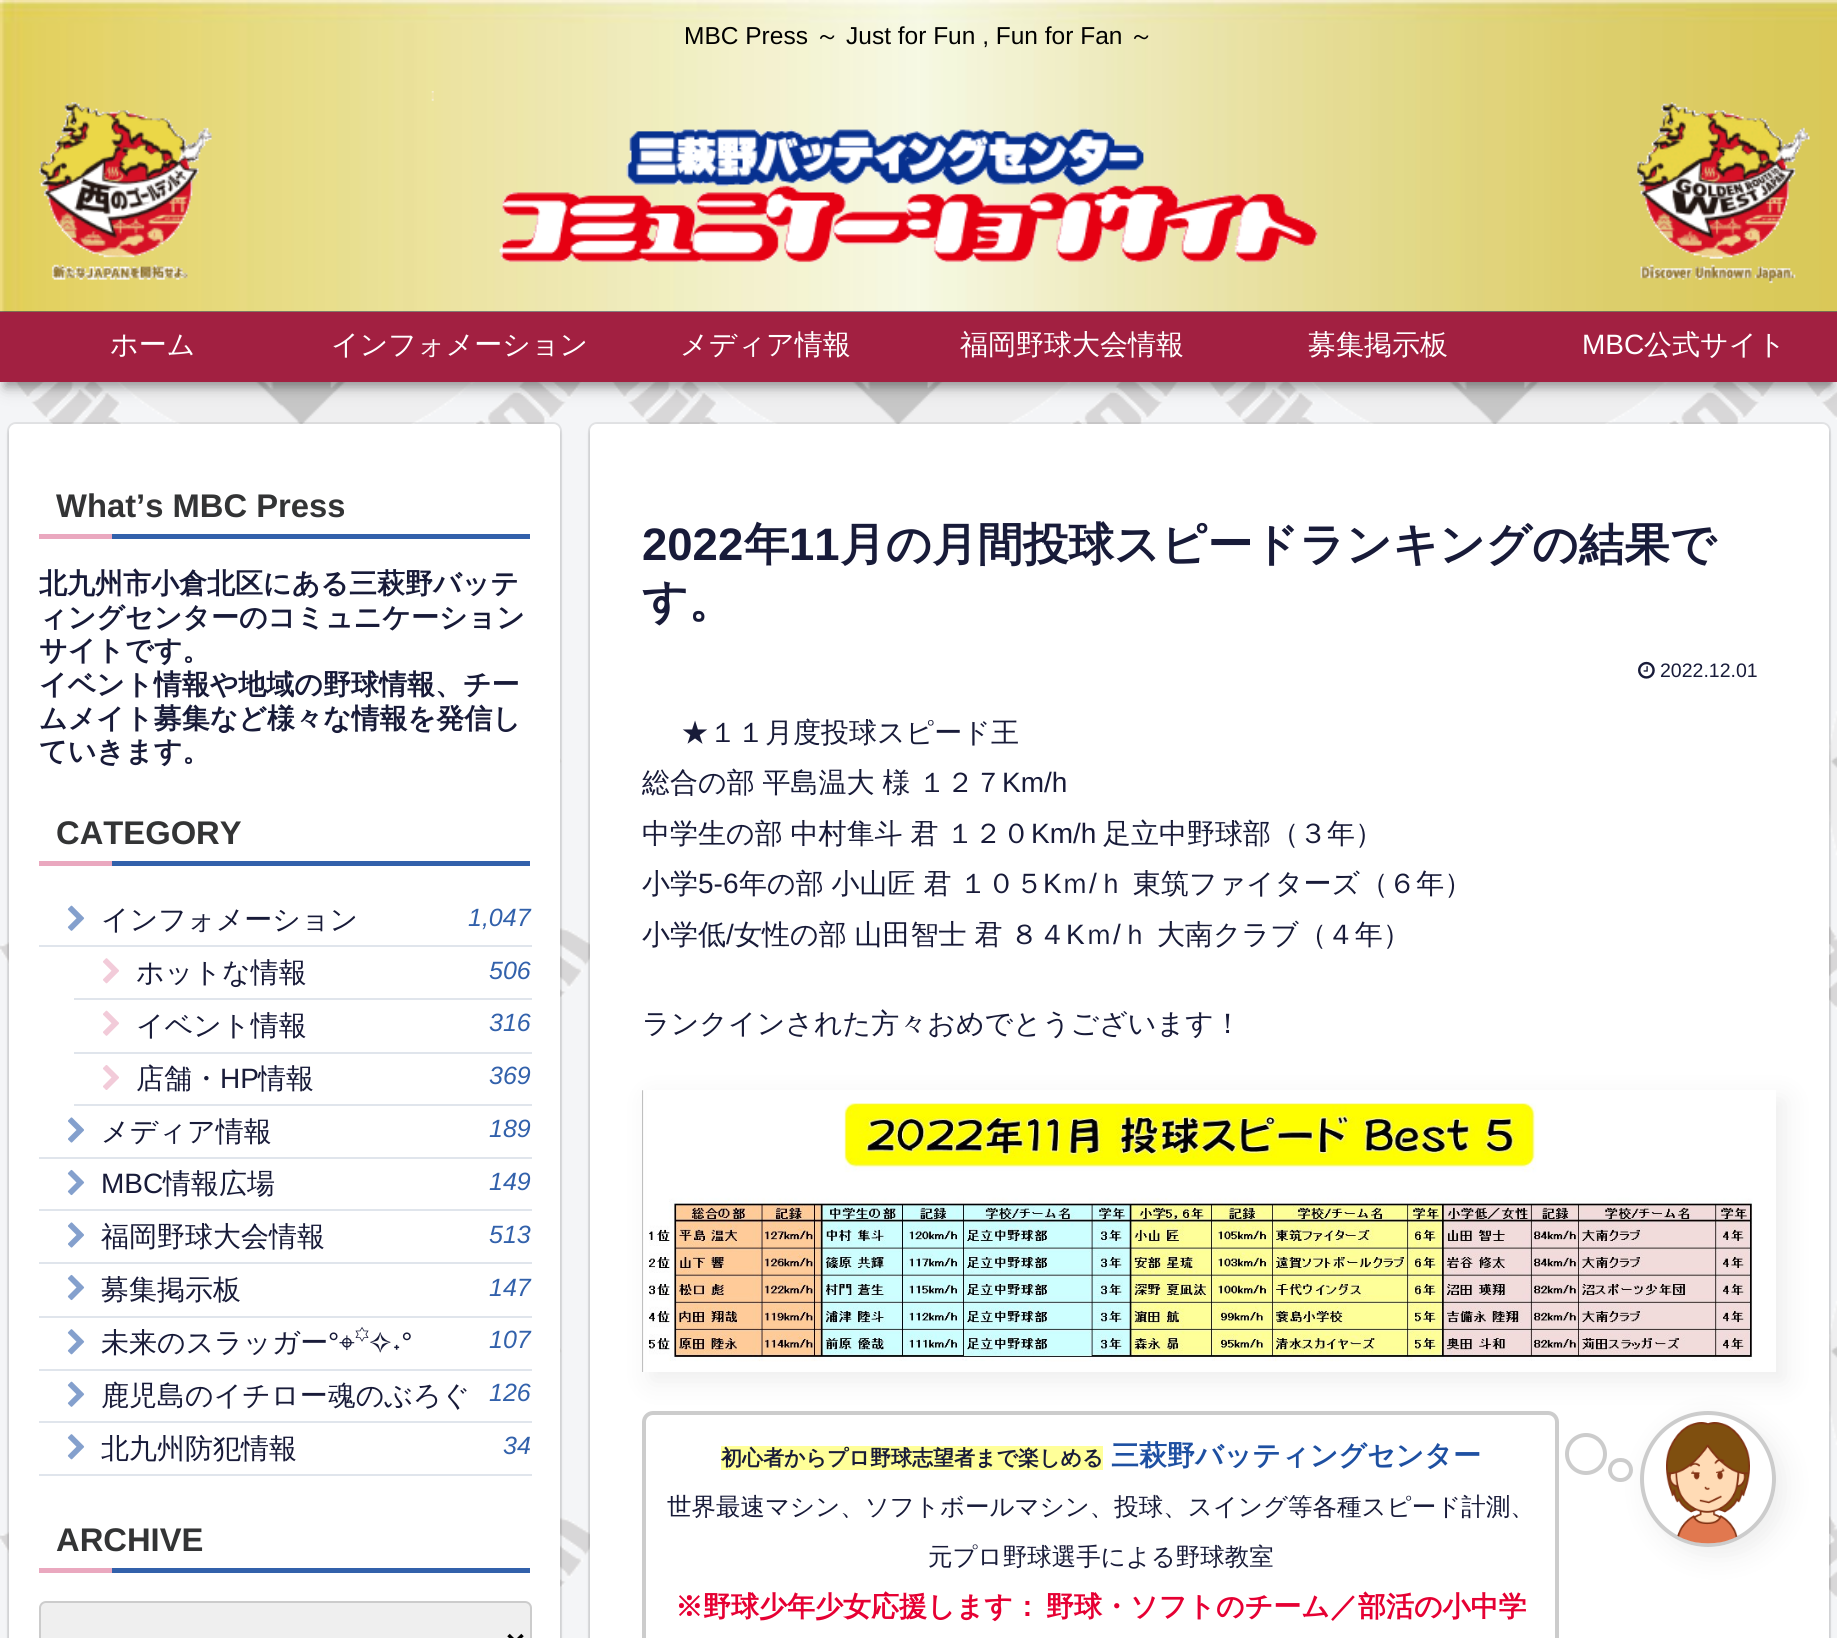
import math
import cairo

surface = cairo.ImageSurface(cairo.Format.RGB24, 1837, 1638)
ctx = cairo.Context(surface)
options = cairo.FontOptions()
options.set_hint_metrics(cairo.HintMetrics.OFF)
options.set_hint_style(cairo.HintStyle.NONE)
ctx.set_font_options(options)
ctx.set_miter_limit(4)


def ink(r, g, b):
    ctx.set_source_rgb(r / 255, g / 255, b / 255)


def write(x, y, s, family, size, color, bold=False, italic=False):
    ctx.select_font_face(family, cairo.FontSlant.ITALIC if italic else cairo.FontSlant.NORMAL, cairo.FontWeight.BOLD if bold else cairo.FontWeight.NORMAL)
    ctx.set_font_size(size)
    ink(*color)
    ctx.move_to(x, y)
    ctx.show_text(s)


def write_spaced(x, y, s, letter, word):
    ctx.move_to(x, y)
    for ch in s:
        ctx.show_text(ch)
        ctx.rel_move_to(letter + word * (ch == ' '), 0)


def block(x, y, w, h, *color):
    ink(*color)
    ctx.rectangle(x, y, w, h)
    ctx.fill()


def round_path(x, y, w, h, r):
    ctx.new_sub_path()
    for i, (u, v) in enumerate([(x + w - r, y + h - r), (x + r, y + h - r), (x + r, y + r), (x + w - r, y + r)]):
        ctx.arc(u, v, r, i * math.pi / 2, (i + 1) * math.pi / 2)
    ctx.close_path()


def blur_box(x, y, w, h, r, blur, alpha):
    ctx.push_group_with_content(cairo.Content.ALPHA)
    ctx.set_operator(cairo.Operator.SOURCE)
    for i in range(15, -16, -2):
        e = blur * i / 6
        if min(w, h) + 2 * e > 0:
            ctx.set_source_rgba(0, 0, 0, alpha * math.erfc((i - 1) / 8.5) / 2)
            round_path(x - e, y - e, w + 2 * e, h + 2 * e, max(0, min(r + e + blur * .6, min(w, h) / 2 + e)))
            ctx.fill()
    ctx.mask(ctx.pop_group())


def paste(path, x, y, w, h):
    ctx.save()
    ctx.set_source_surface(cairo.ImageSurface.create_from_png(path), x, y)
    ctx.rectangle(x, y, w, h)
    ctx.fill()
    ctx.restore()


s1 = dict(family="Liberation Sans", size=24.5, color=(0, 0, 0))
s2 = dict(family="WenQuanYi Zen Hei Medium", size=24.5, color=(0, 0, 0))
s3 = dict(family="WenQuanYi Zen Hei Medium", size=28, color=(255, 255, 255))
s4 = dict(family="Liberation Sans", size=28, color=(255, 255, 255))
s5 = dict(family="Liberation Sans", size=32.75, color=(51, 52, 53), bold=True)
s6 = dict(family="WenQuanYi Zen Hei", size=28, color=(24, 27, 57), bold=True)
s7 = dict(family="WenQuanYi Zen Hei Medium", size=28, color=(24, 27, 57))
s8 = dict(family="Liberation Sans", size=25, color=(50, 97, 171), italic=True)
s9 = dict(family="Liberation Sans", size=28, color=(24, 27, 57))
s10 = dict(family="FreeSerif", size=28, color=(24, 27, 57))
s11 = dict(family="Liberation Sans", size=45.5, color=(24, 27, 57), bold=True)
s12 = dict(family="WenQuanYi Zen Hei", size=45.5, color=(24, 27, 57), bold=True)
s13 = dict(family="Liberation Sans", size=19.5, color=(24, 27, 57))
s14 = dict(family="WenQuanYi Zen Hei", size=21, color=(24, 27, 57), bold=True)
s15 = dict(family="WenQuanYi Zen Hei", size=28, color=(30, 80, 162), bold=True)
s16 = dict(family="WenQuanYi Zen Hei Medium", size=24.5, color=(24, 27, 57))
s17 = dict(family="WenQuanYi Zen Hei", size=28, color=(230, 0, 51), bold=True)

ink(244, 245, 247)
ctx.paint()
paste("pic1.png", 0, 382, 1837, 1217)
ink(0, 0, 0)
blur_box(5, 16, 1827, 371, 0, 9, 0.18)
blur_box(5, 16, 1827, 371, 0, 4.5, 0.24)
block(0, 311, 1837, 1, 23, 24, 75)
paste("pic2.png", 0, 0, 1837, 312)
write(684, 44, "MBC Press", **s1)
write(815, 44, "～", **s2)
write(846, 44, "Just for Fun , Fun for Fan", **s1)
write(1129, 44, "～", **s2)
paste("pic3.png", 39, 91, 1771, 193)
block(0, 312, 1837, 70, 162, 32, 65)
write(110, 354, "ホーム", **s3)
write(331, 354, "インフォメーション", **s3)
write(680, 354, "メディア情報", **s3)
write(960, 354, "福岡野球大会情報", **s3)
write(1308, 354, "募集掲示板", **s3)
write(1582, 354, "MBC", **s4)
write(1644, 354, "公式サイト", **s3)
round_path(8, 423, 553, 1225, 8)
ctx.set_source_rgba(0, 0, 0, 0.08)
ctx.stroke()
ink(0, 0, 0)
blur_box(9, 427, 551, 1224, 7, 2, 0.16)
ink(255, 255, 255)
round_path(9, 424, 551, 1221, 7)
ctx.fill()
block(112, 534, 418, 5, 50, 97, 171)
write(56, 517, "What’s MBC Press", **s5)
block(39, 534, 73, 5, 234, 168, 191)
write(39, 593, "北九州市小倉北区にある三萩野バッテ", **s6)
write(39, 627, "ィングセンターのコミュニケーション", **s6)
write(39, 660, "サイトです。", **s6)
write(39, 694, "イベント情報や地域の野球情報、チー", **s6)
write(39, 728, "ムメイト募集など様々な情報を発信し", **s6)
write(39, 761, "ていきます。", **s6)
block(112, 861, 418, 5, 50, 97, 171)
write(56, 844, "CATEGORY", **s5)
block(39, 861, 73, 5, 234, 168, 191)
block(39, 945, 493, 2, 224, 229, 236)
paste("pic4.png", 67, 905, 18, 26)
write(101, 929, "インフォメーション", **s7)
write(468, 926, "1,047", **s8)
block(74, 998, 458, 2, 224, 229, 236)
paste("pic5.png", 103, 958, 16, 26)
write(136, 982, "ホットな情報", **s7)
write(489, 979, "506", **s8)
block(74, 1052, 458, 2, 224, 229, 236)
paste("pic6.png", 103, 1010, 16, 26)
write(136, 1035, "イベント情報", **s7)
write(489, 1031, "316", **s8)
block(74, 1104, 458, 2, 224, 229, 236)
paste("pic7.png", 103, 1065, 16, 25)
write(136, 1088, "店舗・", **s7)
write(220, 1088, "HP", **s9)
write(258, 1088, "情報", **s7)
write(489, 1084, "369", **s8)
block(39, 1157, 493, 2, 224, 229, 236)
paste("pic8.png", 68, 1117, 16, 26)
write(101, 1141, "メディア情報", **s7)
write(489, 1137, "189", **s8)
block(39, 1209, 493, 2, 224, 229, 236)
paste("pic9.png", 67, 1169, 18, 27)
write(101, 1193, "MBC", **s9)
write(163, 1193, "情報広場", **s7)
write(489, 1190, "149", **s8)
block(39, 1262, 493, 2, 224, 229, 236)
paste("pic8.png", 68, 1222, 16, 26)
write(101, 1246, "福岡野球大会情報", **s7)
write(489, 1243, "513", **s8)
block(39, 1316, 493, 2, 224, 229, 236)
paste("pic9.png", 67, 1274, 18, 27)
write(101, 1299, "募集掲示板", **s7)
write(489, 1296, "147", **s8)
block(39, 1369, 493, 2, 224, 229, 236)
paste("pic10.png", 67, 1329, 18, 26)
write(101, 1352, "未来のスラッガー", **s7)
write(328, 1352, "°", **s9)
write(339, 1352, "⌖꙳✧", **s10)
write(392, 1352, "˖°", **s9)
write(489, 1348, "107", **s8)
block(39, 1421, 493, 2, 224, 229, 236)
paste("pic4.png", 67, 1381, 18, 26)
write(101, 1405, "鹿児島のイチロー魂のぶろぐ", **s7)
write(489, 1401, "126", **s8)
block(39, 1474, 493, 2, 224, 229, 236)
paste("pic10.png", 67, 1434, 18, 26)
write(101, 1458, "北九州防犯情報", **s7)
write(503, 1454, "34", **s8)
block(112, 1568, 418, 5, 50, 97, 171)
write(56, 1551, "ARCHIVE", **s5)
block(39, 1568, 73, 5, 234, 168, 191)
ink(239, 239, 239)
round_path(40, 1602, 491, 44, 6)
ctx.fill_preserve()
ink(204, 204, 204)
ctx.stroke()
ctx.new_path()
ctx.move_to(508.5, 1635)
ctx.line_to(515.5, 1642)
ctx.line_to(522.5, 1635)
ink(0, 0, 0)
ctx.set_line_width(3.5)
ctx.stroke()
round_path(589, 423, 1241, 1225, 8)
ctx.set_source_rgba(0, 0, 0, 0.08)
ctx.set_line_width(2)
ctx.stroke()
ink(0, 0, 0)
blur_box(590, 427, 1239, 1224, 7, 2, 0.16)
ink(255, 255, 255)
round_path(590, 424, 1239, 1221, 7)
ctx.fill()
write(642, 560, "2022", **s11)
write(744, 560, "年", **s12)
write(789, 560, "11", **s11)
write(840, 560, "月の月間投球スピードランキングの結果で", **s12)
write(642, 617, "す。", **s12)
paste("pic11.png", 1638, 661, 17, 18)
write(1660, 677, "2022.12.01", **s13)
write(681, 742, "★１１月度投球スピード王", **s7)
write_spaced(642, 792, "総合の部 平島温大 様 １２７", 0, -0.5)
write(1002, 792, "Km/h", **s9)
ctx.select_font_face("WenQuanYi Zen Hei Medium")
write_spaced(642, 843, "中学生の部 中村隼斗 君 １２０", 0, -0.5)
write(1031, 843, "Km/h", **s9)
write(1103, 843, "足立中野球部（３年）", **s7)
write(642, 893, "小学", **s7)
write(698, 893, "5-6", **s9)
ctx.select_font_face("WenQuanYi Zen Hei Medium")
write_spaced(739, 893, "年の部 小山匠 君 １０５", 0, -0.5)
write(1043, 893, "K", **s9)
write(1061, 893, "ｍ", **s7)
write(1089, 893, "/", **s9)
ctx.select_font_face("WenQuanYi Zen Hei Medium")
write_spaced(1097, 893, "ｈ 東筑ファイターズ（６年）", 0, -0.5)
write(642, 944, "小学低", **s7)
write(726, 944, "/", **s9)
ctx.select_font_face("WenQuanYi Zen Hei Medium")
write_spaced(734, 944, "女性の部 山田智士 君 ８４", 0, -0.5)
write(1066, 944, "K", **s9)
write(1085, 944, "ｍ", **s7)
write(1113, 944, "/", **s9)
ctx.select_font_face("WenQuanYi Zen Hei Medium")
write_spaced(1121, 944, "ｈ 大南クラブ（４年）", 0, -0.5)
write(642, 1033, "ランクインされた方々おめでとうございます！", **s7)
ctx.save()
ctx.set_fill_rule(cairo.FillRule.EVEN_ODD)
ctx.new_path()
ctx.move_to(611, 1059)
ctx.line_to(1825, 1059)
ctx.line_to(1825, 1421)
ctx.line_to(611, 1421)
ctx.close_path()
ctx.move_to(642, 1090)
ctx.line_to(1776, 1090)
ctx.line_to(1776, 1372)
ctx.line_to(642, 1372)
ctx.close_path()
ctx.clip()
ink(238, 238, 238)
blur_box(651, 1099, 1134, 282, 0, 13, 1)
ctx.restore()
paste("pic12.png", 642, 1090, 1111, 282)
round_path(644, 1413, 913, 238, 9)
ink(204, 204, 204)
ctx.set_line_width(4)
ctx.stroke()
block(721, 1446, 382, 24, 255, 255, 153)
write(721, 1465, "初心者からプロ野球志望者まで楽しめる", **s14)
write(1111, 1465, "三萩野バッティングセンター", **s15)
write(667, 1515, "世界最速マシン、ソフトボールマシン、投球、スイング等各種スピード計測、", **s16)
write(928, 1565, "元プロ野球選手による野球教室", **s16)
write(675, 1616, "※野球少年少女応援します：", **s17)
write(1046, 1616, "野球・ソフトのチーム／部活の小中学", **s17)
ctx.new_path()
ctx.arc(1586, 1454, 19, 0, 2 * math.pi)
ink(204, 204, 204)
ctx.stroke()
ctx.save()
ctx.set_fill_rule(cairo.FillRule.EVEN_ODD)
ctx.new_path()
ctx.move_to(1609, 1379)
ctx.line_to(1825, 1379)
ctx.line_to(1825, 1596)
ctx.line_to(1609, 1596)
ctx.close_path()
ctx.move_to(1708, 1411)
ctx.curve_to(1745.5, 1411, 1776, 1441.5, 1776, 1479)
ctx.curve_to(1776, 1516.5, 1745.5, 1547, 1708, 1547)
ctx.curve_to(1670.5, 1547, 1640, 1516.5, 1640, 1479)
ctx.curve_to(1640, 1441.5, 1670.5, 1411, 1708, 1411)
ctx.close_path()
ctx.clip()
ink(238, 238, 238)
blur_box(1649, 1419, 136, 137, 68, 13, 1)
ctx.restore()
round_path(1610, 1460, 21, 20, 10)
ctx.stroke()
ctx.arc(1708, 1479, 66, 0, 2 * math.pi)
ctx.stroke()
paste("pic13.png", 1666, 1422, 84, 122)
surface.write_to_png("screenshot.png")
